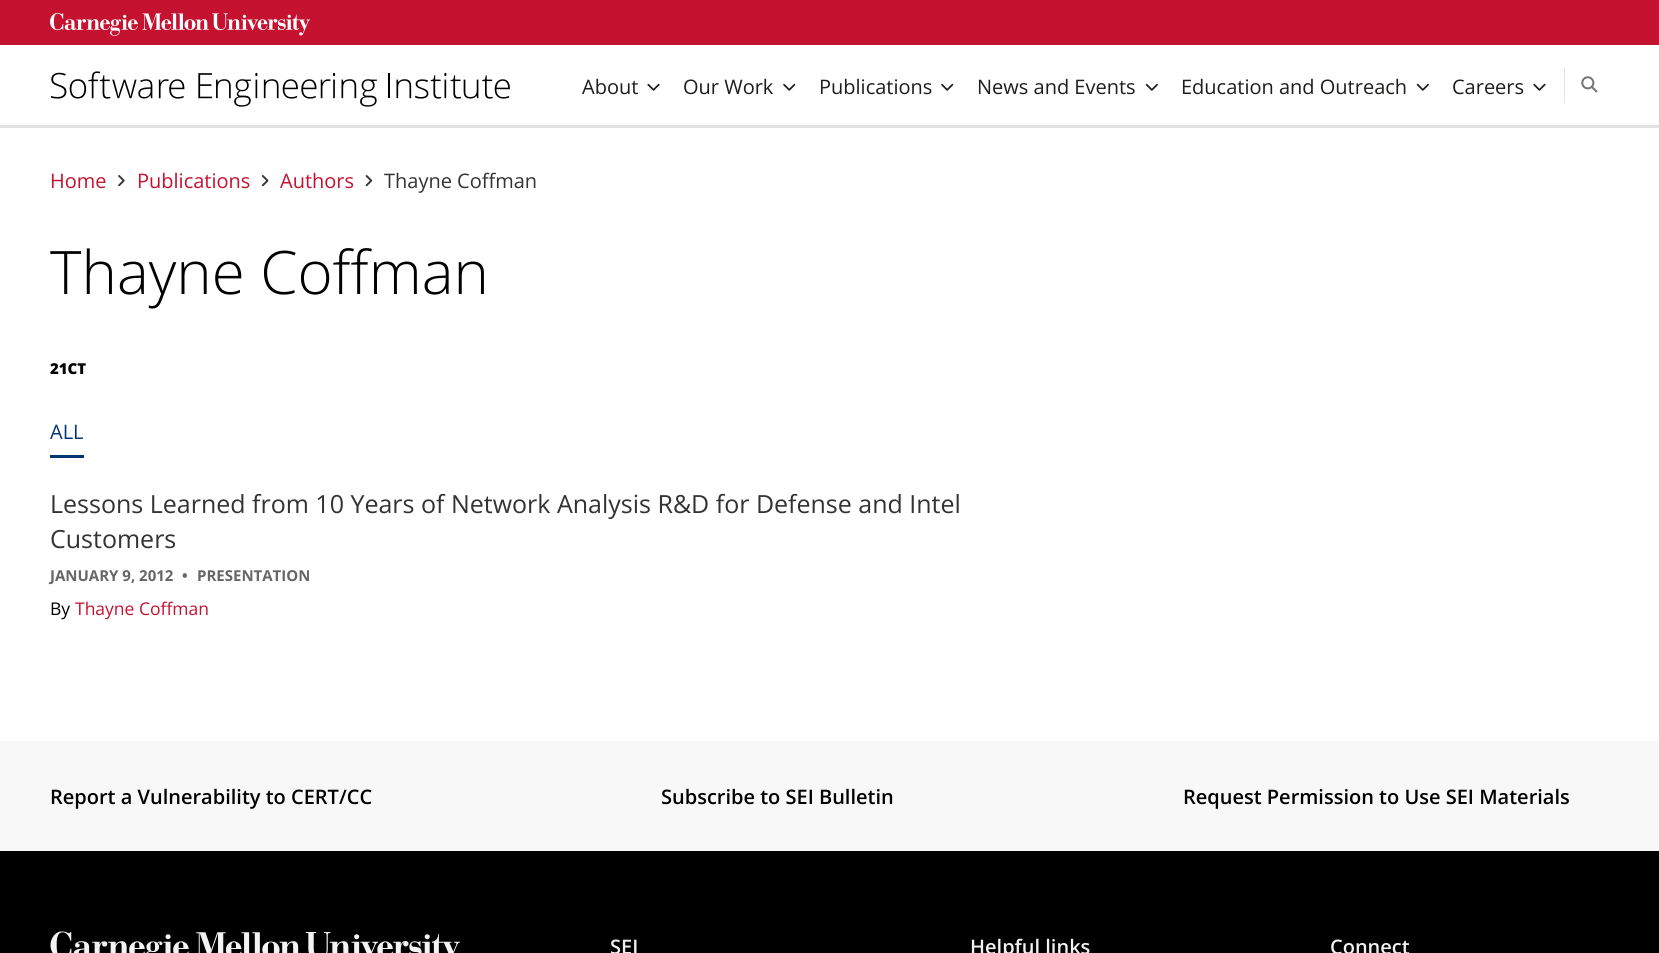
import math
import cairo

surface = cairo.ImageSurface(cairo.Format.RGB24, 1659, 953)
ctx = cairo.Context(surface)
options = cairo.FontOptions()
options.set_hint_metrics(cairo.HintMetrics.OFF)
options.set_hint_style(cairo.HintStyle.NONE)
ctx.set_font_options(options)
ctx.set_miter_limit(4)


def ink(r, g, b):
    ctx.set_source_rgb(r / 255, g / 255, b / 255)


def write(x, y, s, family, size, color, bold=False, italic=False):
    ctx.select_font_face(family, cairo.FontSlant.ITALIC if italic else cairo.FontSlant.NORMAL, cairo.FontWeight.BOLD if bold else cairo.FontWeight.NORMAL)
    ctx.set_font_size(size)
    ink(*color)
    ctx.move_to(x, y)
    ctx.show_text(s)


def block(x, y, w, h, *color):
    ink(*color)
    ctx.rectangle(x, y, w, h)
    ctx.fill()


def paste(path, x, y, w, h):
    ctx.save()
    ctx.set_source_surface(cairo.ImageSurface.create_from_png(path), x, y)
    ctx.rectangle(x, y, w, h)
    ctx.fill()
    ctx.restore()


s1 = dict(family="Open Sans", size=20, color=(30, 29, 27))
s2 = dict(family="Open Sans", size=20, color=(196, 18, 48))
s3 = dict(family="Open Sans", size=20, color=(51, 51, 51))
s4 = dict(family="Open Sans Light", size=60, color=(0, 0, 0))
s5 = dict(family="Open Sans ExtraBold", size=15, color=(0, 0, 0))
s6 = dict(family="Open Sans", size=20, color=(4, 54, 115))
s7 = dict(family="Open Sans", size=25, color=(51, 51, 51))
s8 = dict(family="Open Sans", size=15, color=(102, 102, 102), bold=True)
s9 = dict(family="Open Sans", size=17.5, color=(0, 0, 0))
s10 = dict(family="Open Sans", size=17.5, color=(196, 18, 48))
s11 = dict(family="Open Sans SemiBold", size=20, color=(0, 0, 0))
s12 = dict(family="Open Sans SemiBold", size=20, color=(242, 241, 241))

ink(255, 255, 255)
ctx.paint()
block(0, 0, 1659, 45, 196, 18, 48)
paste("pic1.png", 50, 12, 260, 24)
block(0, 125, 1659, 3, 228, 227, 227)
paste("pic2.png", 50, 71, 460, 36)
write(582, 94, "About", **s1)
paste("pic3.png", 647, 83, 13, 8)
write(683, 94, "Our Work", **s1)
paste("pic4.png", 783, 83, 13, 8)
write(819, 94, "Publications", **s1)
paste("pic5.png", 941, 83, 13, 8)
write(977, 94, "News and Events", **s1)
paste("pic6.png", 1145, 83, 13, 8)
write(1181, 94, "Education and Outreach", **s1)
paste("pic7.png", 1416, 83, 13, 8)
write(1452, 94, "Careers", **s1)
paste("pic8.png", 1533, 83, 13, 8)
block(1564, 68, 1, 35, 228, 227, 227)
paste("pic9.png", 1581, 76, 17, 17)
write(50, 188, "Home", **s2)
paste("pic10.png", 118, 175, 7, 12)
write(137, 188, "Publications", **s2)
paste("pic11.png", 261, 175, 8, 12)
write(280, 188, "Authors", **s2)
paste("pic12.png", 365, 175, 8, 12)
write(384, 188, "Thayne Coffman", **s3)
write(50, 294, "Thayne Coffman", **s4)
write(50, 374, "21CT", **s5)
write(50, 439, "ALL", **s6)
block(50, 455, 34, 3, 4, 54, 115)
write(50, 513, "Lessons Learned from 10 Years of Network Analysis R&D for Defense and Intel", **s7)
write(50, 548, "Customers", **s7)
write(50, 581, "JANUARY 9, 2012", **s8)
write(182, 581, "•", **s8)
write(197, 581, "PRESENTATION", **s8)
write(50, 615, "By", **s9)
write(75, 615, "Thayne Coffman", **s10)
block(0, 741, 1659, 110, 249, 248, 248)
write(50, 804, "Report a Vulnerability to CERT/CC", **s11)
write(661, 804, "Subscribe to SEI Bulletin", **s11)
write(1183, 804, "Request Permission to Use SEI Materials", **s11)
block(0, 851, 1659, 102, 0, 0, 0)
paste("pic13.png", 50, 931, 410, 22)
write(610, 954, "SEI", **s12)
write(970, 954, "Helpful links", **s12)
write(1330, 954, "Connect", **s12)
surface.write_to_png("screenshot.png")
